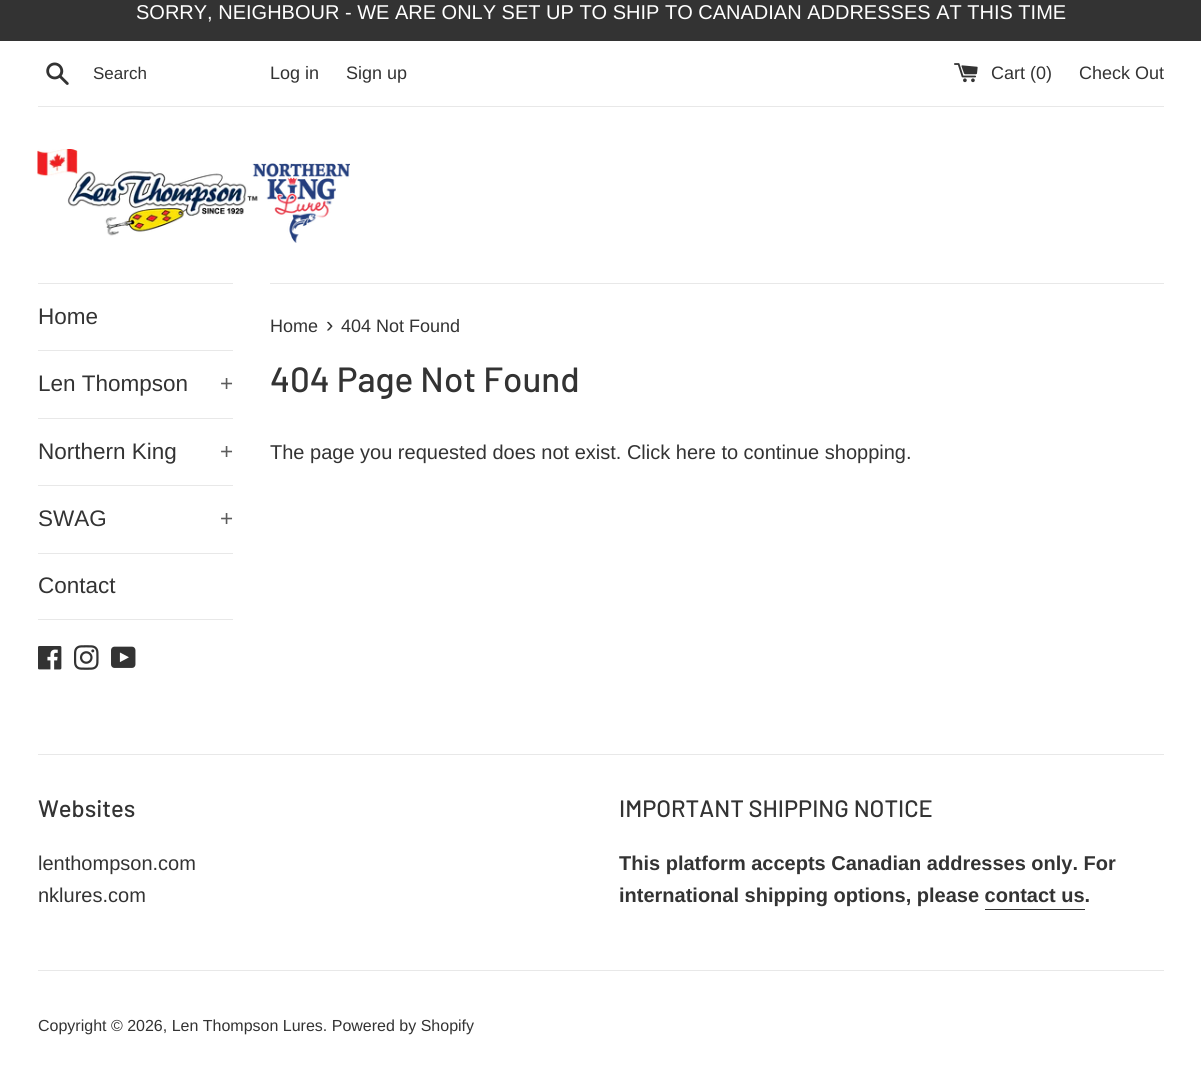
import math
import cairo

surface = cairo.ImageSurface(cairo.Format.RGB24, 1201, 1077)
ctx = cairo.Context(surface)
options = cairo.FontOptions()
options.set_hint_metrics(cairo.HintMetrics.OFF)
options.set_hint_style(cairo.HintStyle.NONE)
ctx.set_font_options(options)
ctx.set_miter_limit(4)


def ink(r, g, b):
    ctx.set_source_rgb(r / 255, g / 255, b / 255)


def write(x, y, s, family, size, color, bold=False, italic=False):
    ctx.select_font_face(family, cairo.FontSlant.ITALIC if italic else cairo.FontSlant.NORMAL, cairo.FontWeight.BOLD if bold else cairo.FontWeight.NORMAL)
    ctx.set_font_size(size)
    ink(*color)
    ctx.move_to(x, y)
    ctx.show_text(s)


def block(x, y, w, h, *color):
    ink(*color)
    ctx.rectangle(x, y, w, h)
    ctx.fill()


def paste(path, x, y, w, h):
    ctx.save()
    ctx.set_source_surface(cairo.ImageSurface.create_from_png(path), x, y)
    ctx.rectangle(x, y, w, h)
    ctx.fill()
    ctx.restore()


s1 = dict(family="Liberation Sans", size=20, color=(255, 255, 255))
s2 = dict(family="Liberation Sans", size=17, color=(51, 51, 51))
s3 = dict(family="Liberation Sans", size=18, color=(51, 51, 51))
s4 = dict(family="Liberation Sans", size=22.5, color=(51, 51, 51))
s5 = dict(family="Liberation Sans", size=22.5, color=(92, 92, 92))
s6 = dict(family="Liberation Sans", size=22, color=(51, 51, 51))
s7 = dict(family="Barlow Medium", size=35, color=(51, 51, 51))
s8 = dict(family="Liberation Sans", size=20, color=(51, 51, 51))
s9 = dict(family="Barlow Medium", size=23.75, color=(51, 51, 51))
s10 = dict(family="Liberation Sans", size=20, color=(51, 51, 51), bold=True)
s11 = dict(family="Liberation Sans", size=16, color=(51, 51, 51))

ink(255, 255, 255)
ctx.paint()
block(0, 0, 1201, 41, 51, 51, 51)
write(136, 19, "SORRY, NEIGHBOUR - WE ARE ONLY SET UP TO SHIP TO CANADIAN ADDRESSES AT THIS TIME", **s1)
paste("pic1.png", 46, 62, 23, 23)
write(93, 79, "Search", **s2)
write(270, 79, "Log in", **s3)
write(346, 79, "Sign up", **s3)
paste("pic2.png", 954, 63, 24, 20)
write(991, 79, "Cart (0)", **s3)
write(1079, 79, "Check Out", **s3)
block(38, 106, 1126, 1, 232, 232, 232)
paste("pic3.png", 37, 149, 313, 94)
block(38, 283, 195, 1, 232, 232, 232)
block(38, 350, 195, 1, 232, 232, 232)
write(38, 324, "Home", **s4)
block(38, 418, 195, 1, 232, 232, 232)
write(38, 391, "Len Thompson", **s4)
write(220, 391, "+", **s5)
block(38, 485, 195, 1, 232, 232, 232)
write(38, 459, "Northern King", **s4)
write(220, 459, "+", **s5)
block(38, 553, 195, 1, 232, 232, 232)
write(38, 526, "SWAG", **s4)
write(220, 526, "+", **s5)
block(38, 619, 195, 1, 232, 232, 232)
write(38, 593, "Contact", **s4)
paste("pic4.png", 38, 646, 24, 24)
paste("pic5.png", 74, 645, 25, 25)
paste("pic6.png", 111, 646, 25, 22)
block(270, 283, 894, 1, 232, 232, 232)
write(270, 332, "Home", **s3)
write(326, 332, "›", **s6)
write(341, 332, "404 Not Found", **s3)
write(270, 392, "404 Page Not Found", **s7)
write(270, 459, "The page you requested does not exist. Click here to continue shopping.", **s8)
block(38, 754, 1126, 1, 232, 232, 232)
write(38, 817, "Websites", **s9)
write(38, 870, "lenthompson.com", **s8)
write(38, 902, "nklures.com", **s8)
write(619, 817, "IMPORTANT SHIPPING NOTICE", **s9)
write(619, 870, "This platform accepts Canadian addresses only. For", **s10)
write(619, 902, "international shipping options, please contact us.", **s10)
block(985, 909, 100, 1, 51, 51, 51)
block(38, 970, 1126, 1, 232, 232, 232)
write(38, 1031, "Copyright © 2026, Len Thompson Lures. Powered by Shopify", **s11)
surface.write_to_png("screenshot.png")
